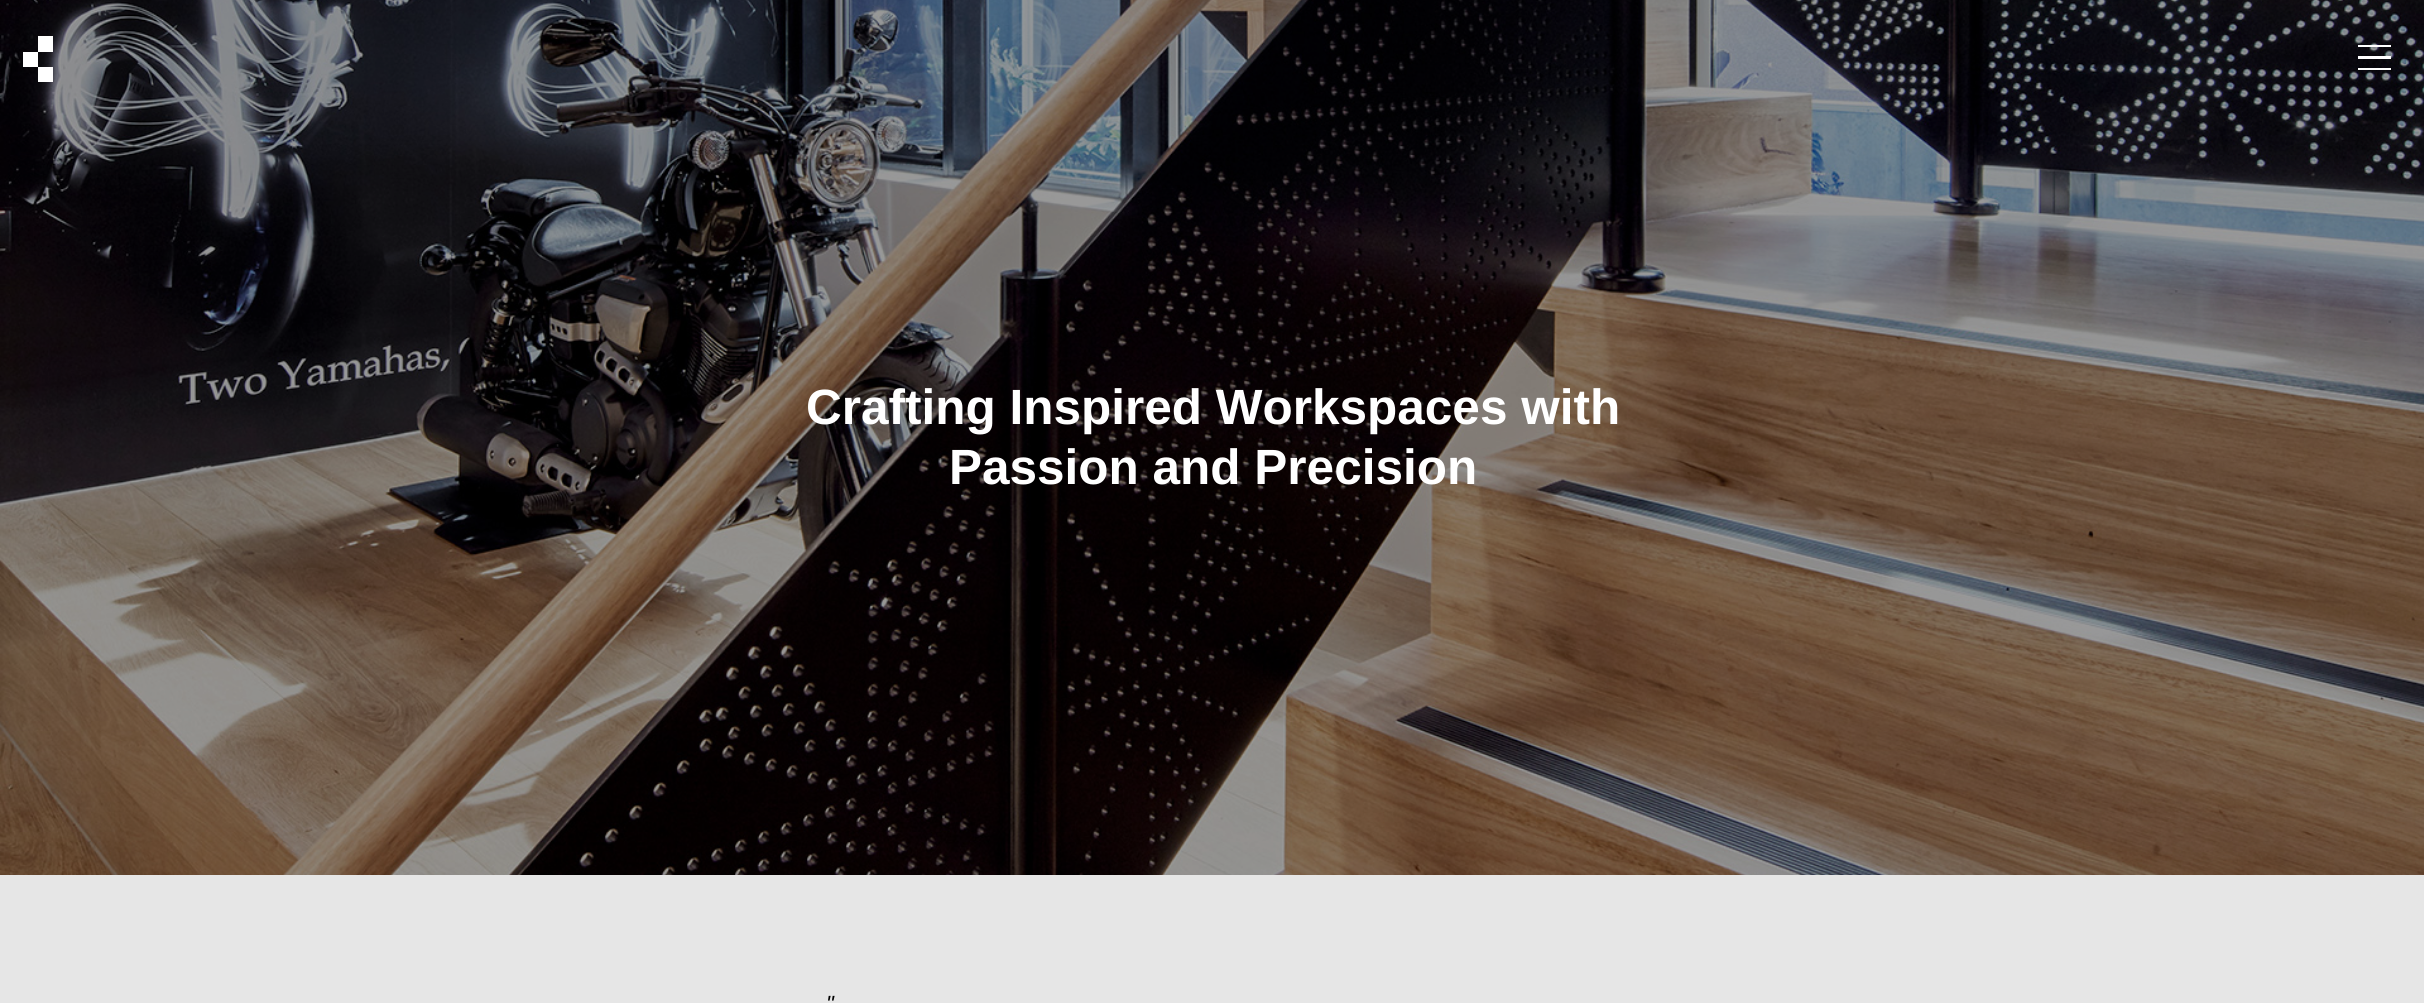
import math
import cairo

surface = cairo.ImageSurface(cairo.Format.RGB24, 2424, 1003)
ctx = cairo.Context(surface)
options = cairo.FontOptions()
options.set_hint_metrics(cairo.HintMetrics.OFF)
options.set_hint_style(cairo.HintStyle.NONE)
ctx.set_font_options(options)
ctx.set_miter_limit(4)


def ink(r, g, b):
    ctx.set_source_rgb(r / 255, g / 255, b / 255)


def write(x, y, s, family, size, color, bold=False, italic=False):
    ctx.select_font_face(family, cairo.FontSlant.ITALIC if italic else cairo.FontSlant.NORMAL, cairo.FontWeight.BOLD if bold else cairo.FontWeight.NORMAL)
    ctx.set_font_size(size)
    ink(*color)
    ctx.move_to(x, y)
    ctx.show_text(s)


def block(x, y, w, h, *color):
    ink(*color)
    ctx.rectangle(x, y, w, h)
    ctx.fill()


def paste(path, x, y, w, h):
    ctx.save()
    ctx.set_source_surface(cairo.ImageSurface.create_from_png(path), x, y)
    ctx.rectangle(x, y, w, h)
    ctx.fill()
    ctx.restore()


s1 = dict(family="Liberation Sans", size=49.5, color=(255, 255, 255), bold=True)
s2 = dict(family="Liberation Sans", size=22, color=(0, 0, 0), italic=True)

ink(230, 230, 230)
ctx.paint()
paste("pic1.png", 0, 0, 2424, 875)
block(38, 36, 15, 16, 255, 255, 255)
block(23, 52, 15, 15, 255, 255, 255)
block(38, 67, 15, 15, 255, 255, 255)
block(2358, 45, 33, 2, 255, 255, 255)
block(2358, 56, 33, 3, 255, 255, 255)
block(2358, 68, 33, 2, 255, 255, 255)
write(806, 424, "Crafting Inspired Workspaces with", **s1)
write(949, 484, "Passion and Precision", **s1)
write(826, 1011, "\"", **s2)
surface.write_to_png("screenshot.png")
